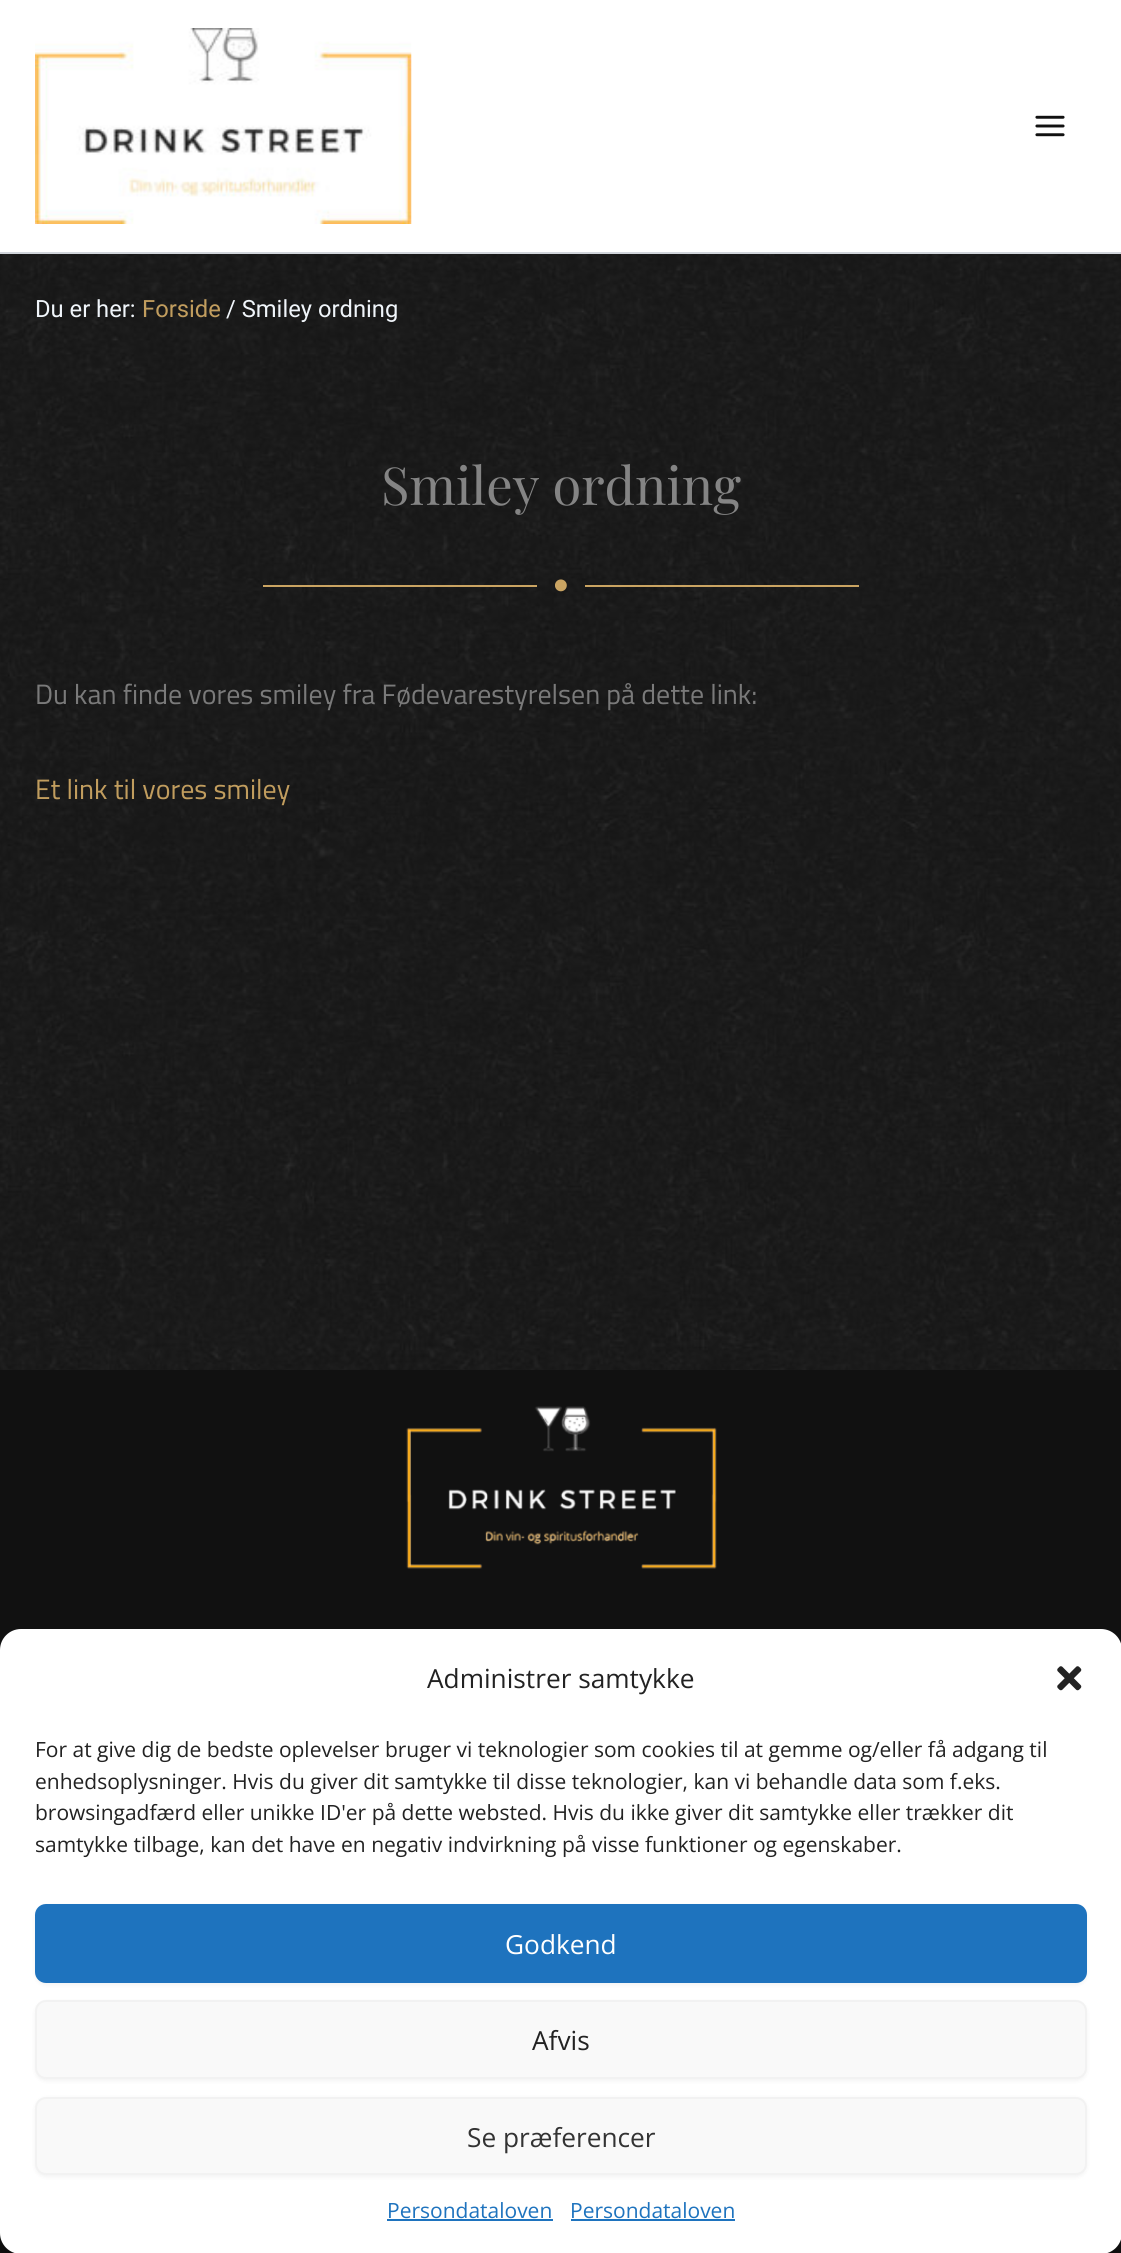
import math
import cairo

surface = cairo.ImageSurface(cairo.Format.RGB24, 1121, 2253)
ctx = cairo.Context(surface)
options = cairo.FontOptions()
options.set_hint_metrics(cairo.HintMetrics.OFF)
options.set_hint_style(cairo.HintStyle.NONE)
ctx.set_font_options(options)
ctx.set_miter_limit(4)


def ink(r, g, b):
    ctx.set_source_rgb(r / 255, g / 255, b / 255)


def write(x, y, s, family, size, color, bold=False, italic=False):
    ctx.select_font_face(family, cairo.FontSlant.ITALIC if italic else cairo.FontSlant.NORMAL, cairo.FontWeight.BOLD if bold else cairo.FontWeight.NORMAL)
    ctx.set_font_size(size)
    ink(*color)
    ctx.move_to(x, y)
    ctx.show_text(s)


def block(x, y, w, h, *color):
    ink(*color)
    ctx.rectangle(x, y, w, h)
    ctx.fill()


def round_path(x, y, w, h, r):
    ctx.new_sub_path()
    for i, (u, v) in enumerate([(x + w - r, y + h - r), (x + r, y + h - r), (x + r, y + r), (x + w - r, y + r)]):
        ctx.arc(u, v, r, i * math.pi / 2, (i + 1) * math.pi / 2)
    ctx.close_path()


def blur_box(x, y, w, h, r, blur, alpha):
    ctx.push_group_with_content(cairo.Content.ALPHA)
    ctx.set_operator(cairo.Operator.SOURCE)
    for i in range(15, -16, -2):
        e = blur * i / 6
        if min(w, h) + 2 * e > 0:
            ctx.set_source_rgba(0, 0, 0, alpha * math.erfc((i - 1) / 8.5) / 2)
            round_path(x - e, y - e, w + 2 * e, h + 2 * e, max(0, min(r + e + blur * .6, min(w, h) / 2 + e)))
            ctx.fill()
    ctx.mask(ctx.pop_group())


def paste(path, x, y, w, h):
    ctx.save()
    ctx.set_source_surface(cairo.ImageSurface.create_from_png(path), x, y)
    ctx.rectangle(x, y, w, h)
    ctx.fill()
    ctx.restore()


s1 = dict(family="Roboto", size=23.75, color=(240, 245, 250))
s2 = dict(family="Roboto", size=23.75, color=(193, 157, 94))
s3 = dict(family="Playfair Display", size=52.5, color=(132, 132, 132))
s4 = dict(family="Titillium Web", size=28, color=(122, 122, 122))
s5 = dict(family="Titillium Web", size=28, color=(193, 157, 94))
s6 = dict(family="Open Sans", size=26.25, color=(34, 34, 34))
s7 = dict(family="Open Sans", size=21, color=(34, 34, 34))
s8 = dict(family="Open Sans", size=26.25, color=(255, 255, 255))
s9 = dict(family="Open Sans", size=26.25, color=(51, 51, 51))
s10 = dict(family="Open Sans", size=21, color=(30, 115, 190))

ink(255, 255, 255)
ctx.paint()
paste("pic1.png", 0, 254, 1121, 1116)
block(0, 252, 1121, 2, 209, 213, 219)
paste("pic2.png", 35, 28, 377, 196)
paste("pic3.png", 1035, 115, 30, 22)
write(35, 317, "Du er her:", **s1)
write(142, 317, "Forside", **s2)
write(226, 317, "/ Smiley ordning", **s1)
write(381, 505, "Smiley ordning", **s3)
block(263, 585, 274, 2, 202, 164, 98)
paste("pic4.png", 555, 579, 12, 13)
block(585, 585, 274, 2, 202, 164, 98)
write(35, 704, "Du kan finde vores smiley fra Fødevarestyrelsen på dette link:", **s4)
write(35, 799, "Et link til vores smiley", **s5)
block(0, 1370, 1121, 254, 17, 17, 17)
paste("pic5.png", 406, 1406, 311, 163)
block(0, 1624, 1121, 26, 17, 17, 17)
block(0, 2233, 1121, 20, 17, 17, 17)
ink(0, 0, 0)
blur_box(0, 1640, 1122, 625, 21, 5, 0.23)
ink(255, 255, 255)
round_path(0, 1629, 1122, 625, 21)
ctx.fill()
write(427, 1688, "Administrer samtykke", **s6)
paste("pic6.png", 1057, 1666, 25, 25)
write(35, 1757, "For at give dig de bedste oplevelser bruger vi teknologier som cookies til at gemme og/eller få adgang til", **s7)
write(35, 1789, "enhedsoplysninger. Hvis du giver dit samtykke til disse teknologier, kan vi behandle data som f.eks.", **s7)
write(35, 1820, "browsingadfærd eller unikke ID'er på dette websted. Hvis du ikke giver dit samtykke eller trækker dit", **s7)
write(35, 1852, "samtykke tilbage, kan det have en negativ indvirkning på visse funktioner og egenskaber.", **s7)
ink(0, 0, 0)
blur_box(35, 1906, 1052, 79, 11, 2, 0.05)
ink(30, 115, 190)
round_path(36, 1905, 1050, 77, 10)
ctx.fill_preserve()
ctx.stroke()
write(505, 1954, "Godkend", **s8)
ink(0, 0, 0)
blur_box(35, 2002, 1052, 79, 11, 2, 0.05)
ink(249, 249, 249)
round_path(36, 2001, 1050, 77, 10)
ctx.fill_preserve()
ink(242, 242, 242)
ctx.stroke()
write(532, 2050, "Afvis", **s6)
ink(0, 0, 0)
blur_box(35, 2098, 1052, 79, 11, 2, 0.05)
ink(249, 249, 249)
round_path(36, 2098, 1050, 76, 10)
ctx.fill_preserve()
ink(242, 242, 242)
ctx.stroke()
write(467, 2147, "Se præferencer", **s9)
write(387, 2218, "Persondataloven", **s10)
block(387, 2219, 166, 2, 30, 115, 190)
write(570, 2218, "Persondataloven", **s10)
block(571, 2219, 164, 2, 30, 115, 190)
surface.write_to_png("screenshot.png")
